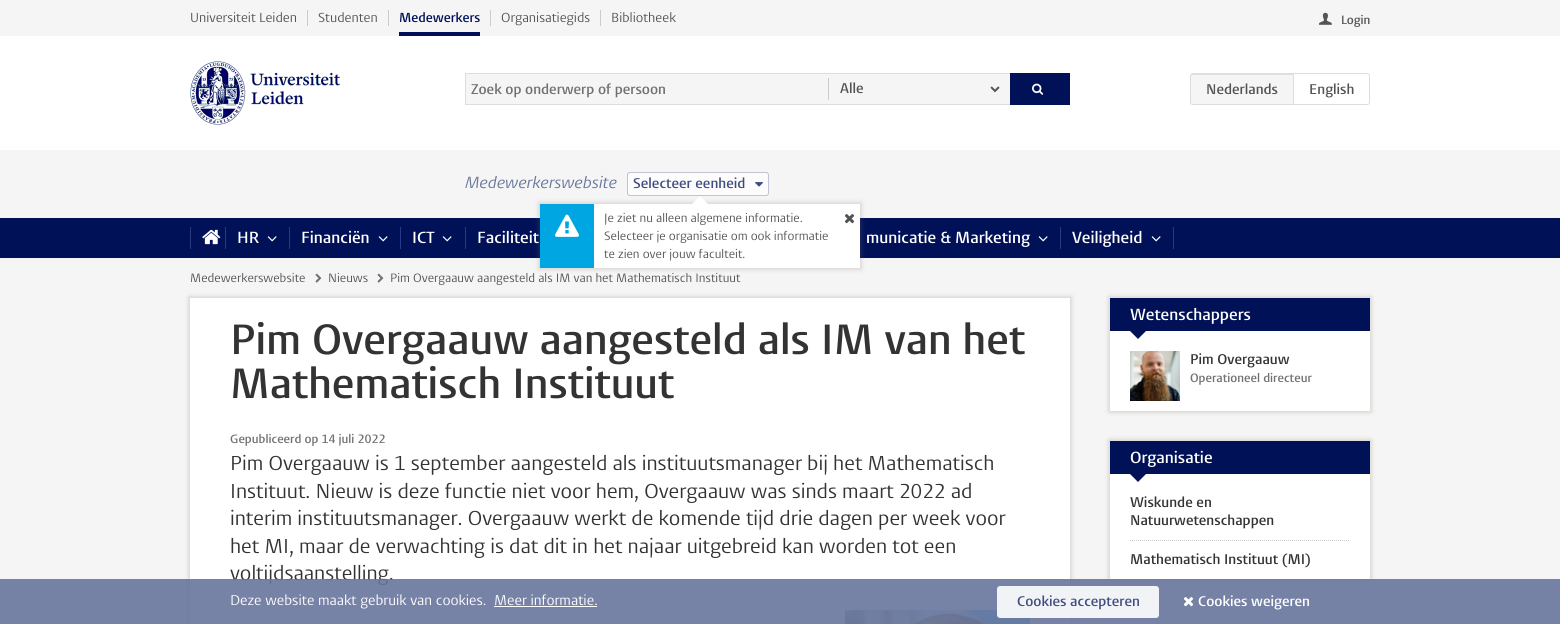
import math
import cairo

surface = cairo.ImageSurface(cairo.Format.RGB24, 1560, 624)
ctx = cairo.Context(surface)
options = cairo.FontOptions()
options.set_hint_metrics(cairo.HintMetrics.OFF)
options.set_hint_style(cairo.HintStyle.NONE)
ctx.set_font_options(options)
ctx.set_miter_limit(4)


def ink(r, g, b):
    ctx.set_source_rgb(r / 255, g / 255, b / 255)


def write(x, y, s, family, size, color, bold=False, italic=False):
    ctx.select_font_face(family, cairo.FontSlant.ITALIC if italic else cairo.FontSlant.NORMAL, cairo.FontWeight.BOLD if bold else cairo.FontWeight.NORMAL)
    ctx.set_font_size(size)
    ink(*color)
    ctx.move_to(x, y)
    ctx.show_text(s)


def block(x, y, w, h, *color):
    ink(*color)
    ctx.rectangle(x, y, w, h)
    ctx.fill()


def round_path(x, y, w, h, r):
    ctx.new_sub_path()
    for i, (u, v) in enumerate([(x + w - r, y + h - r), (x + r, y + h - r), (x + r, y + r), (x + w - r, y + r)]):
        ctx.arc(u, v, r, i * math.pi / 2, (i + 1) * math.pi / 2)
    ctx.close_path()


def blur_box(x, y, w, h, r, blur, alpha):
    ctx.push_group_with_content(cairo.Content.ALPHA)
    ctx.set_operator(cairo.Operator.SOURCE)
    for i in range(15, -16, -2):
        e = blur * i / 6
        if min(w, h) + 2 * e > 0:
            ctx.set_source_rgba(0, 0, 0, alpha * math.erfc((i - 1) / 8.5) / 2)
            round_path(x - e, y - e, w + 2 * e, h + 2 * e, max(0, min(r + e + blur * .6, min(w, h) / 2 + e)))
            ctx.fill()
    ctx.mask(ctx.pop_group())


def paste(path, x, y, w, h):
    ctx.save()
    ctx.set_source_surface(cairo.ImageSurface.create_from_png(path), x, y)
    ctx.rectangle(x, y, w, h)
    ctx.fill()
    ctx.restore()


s1 = dict(family="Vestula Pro", size=13, color=(83, 83, 83))
s2 = dict(family="Vestula Pro SemiBold", size=13, color=(0, 17, 88))
s3 = dict(family="Vestula Pro SemiBold", size=12, color=(83, 83, 83))
s4 = dict(family="Vestula Pro SemiBold", size=14, color=(112, 112, 112))
s5 = dict(family="Vestula Pro SemiBold", size=14, color=(83, 83, 83))
s6 = dict(family="Vestula Pro", size=16, color=(104, 118, 156), italic=True)
s7 = dict(family="Vestula Pro SemiBold", size=14, color=(64, 77, 130))
s8 = dict(family="Vestula Pro", size=12, color=(83, 83, 83))
s9 = dict(family="Vestula Pro SemiBold", size=16, color=(255, 255, 255))
s10 = dict(family="Vestula Pro SemiBold", size=42, color=(51, 51, 51))
s11 = dict(family="Vestula Pro SemiBold", size=12, color=(112, 112, 112))
s12 = dict(family="Vestula Pro", size=20, color=(51, 51, 51))
s13 = dict(family="Vestula Pro SemiBold", size=14, color=(51, 51, 51))
s14 = dict(family="Vestula Pro", size=14, color=(255, 255, 255))
s15 = dict(family="Vestula Pro SemiBold", size=14, color=(255, 255, 255))

ink(245, 245, 245)
ctx.paint()
block(0, 36, 1560, 114, 255, 255, 255)
block(307, 10, 1, 16, 204, 204, 204)
write(190, 22, "Universiteit Leiden", **s1)
block(388, 10, 1, 16, 204, 204, 204)
write(318, 22, "Studenten", **s1)
block(490, 10, 1, 16, 204, 204, 204)
write(399, 22, "Medewerkers", **s2)
block(399, 32, 81, 4, 0, 17, 88)
block(600, 10, 1, 16, 204, 204, 204)
write(501, 22, "Organisatiegids", **s1)
write(611, 22, "Bibliotheek", **s1)
paste("pic1.png", 1319, 12, 13, 13)
write(1341, 24, "Login", **s3)
paste("pic2.png", 190, 61, 150, 64)
block(466, 74, 544, 30, 245, 245, 245)
block(465, 73, 545, 1, 221, 221, 221)
block(465, 104, 545, 1, 221, 221, 221)
block(465, 73, 1, 32, 221, 221, 221)
write(471, 94, "Zoek op onderwerp of persoon", **s4)
block(828, 78, 1, 22, 204, 204, 204)
write(840, 93, "Alle", **s5)
paste("pic3.png", 990, 86, 10, 7)
block(1010, 73, 60, 32, 0, 17, 88)
paste("pic4.png", 1032, 83, 12, 12)
ink(245, 245, 245)
ctx.new_path()
ctx.move_to(1193, 73)
ctx.line_to(1294, 73)
ctx.line_to(1294, 105)
ctx.line_to(1193, 105)
ctx.curve_to(1191.5, 105, 1190, 103.5, 1190, 102)
ctx.line_to(1190, 76)
ctx.curve_to(1190, 74.5, 1191.5, 73, 1193, 73)
ctx.close_path()
ctx.fill()
ink(225, 225, 225)
ctx.new_path()
ctx.move_to(1193, 75)
ctx.line_to(1293, 75)
ctx.line_to(1293, 74)
ctx.line_to(1193, 74)
ctx.curve_to(1191, 74, 1191, 76, 1191, 77)
ctx.curve_to(1191, 76, 1192, 75, 1193, 75)
ctx.close_path()
ctx.fill()
ctx.new_path()
ctx.move_to(1193, 73.5)
ctx.line_to(1293.5, 73.5)
ctx.line_to(1293.5, 104.5)
ctx.line_to(1193, 104.5)
ctx.curve_to(1191.5, 104.5, 1190.5, 103.5, 1190.5, 102)
ctx.line_to(1190.5, 76)
ctx.curve_to(1190.5, 74.5, 1191.5, 73.5, 1193, 73.5)
ctx.close_path()
ink(221, 221, 221)
ctx.set_line_width(1)
ctx.stroke()
write(1206, 94, "Nederlands", **s5)
ink(255, 255, 255)
ctx.new_path()
ctx.move_to(1293.5, 73.5)
ctx.line_to(1367, 73.5)
ctx.curve_to(1368.5, 73.5, 1369.5, 74.5, 1369.5, 76)
ctx.line_to(1369.5, 102)
ctx.curve_to(1369.5, 103.5, 1368.5, 104.5, 1367, 104.5)
ctx.line_to(1293.5, 104.5)
ctx.close_path()
ctx.fill_preserve()
ink(221, 221, 221)
ctx.stroke()
write(1309, 94, "English", **s5)
write(465, 188, "Medewerkerswebsite", **s6)
ink(252, 252, 252)
round_path(627.5, 172.5, 141, 23, 2.5)
ctx.fill_preserve()
ink(191, 195, 213)
ctx.stroke()
write(633, 188, "Selecteer eenheid", **s7)
paste("pic5.png", 755, 182, 8, 5)
block(0, 218, 1560, 40, 0, 17, 88)
ink(120, 110, 100)
blur_box(539, 203, 322, 66, 0, 2.5, 0.3)
block(594, 204, 266, 64, 255, 255, 255)
ctx.new_path()
ctx.move_to(708, 204)
ctx.line_to(692, 204)
ctx.line_to(700, 196)
ctx.close_path()
ctx.fill()
block(540, 204, 54, 64, 0, 166, 226)
paste("pic6.png", 555, 214, 24, 23)
write(604, 222, "Je ziet nu alleen algemene informatie.", **s8)
paste("pic7.png", 844, 214, 11, 10)
write(604, 240, "Selecteer je organisatie om ook informatie", **s8)
write(604, 258, "te zien over jouw faculteit.", **s8)
block(190, 227, 1, 22, 37, 59, 133)
paste("pic8.png", 202, 229, 19, 16)
block(225, 227, 1, 22, 37, 59, 133)
write(237, 243, "HR", **s9)
paste("pic9.png", 267, 236, 10, 6)
block(289, 227, 1, 22, 37, 59, 133)
write(301, 243, "Financiën", **s9)
paste("pic9.png", 378, 236, 10, 6)
block(400, 227, 1, 22, 37, 59, 133)
write(412, 243, "ICT", **s9)
paste("pic9.png", 442, 236, 10, 6)
block(465, 227, 1, 22, 37, 59, 133)
write(477, 243, "Faciliteit", **s9)
write(866, 243, "municatie & Marketing", **s9)
paste("pic9.png", 1038, 236, 10, 6)
block(1173, 227, 1, 22, 37, 59, 133)
block(1060, 227, 1, 22, 37, 59, 133)
write(1072, 243, "Veiligheid", **s9)
paste("pic9.png", 1151, 236, 10, 6)
write(190, 282, "Medewerkerswebsite", **s8)
paste("pic10.png", 315, 273, 7, 10)
write(328, 282, "Nieuws", **s8)
paste("pic10.png", 377, 273, 7, 10)
write(390, 282, "Pim Overgaauw aangesteld als IM van het Mathematisch Instituut", **s8)
ink(120, 110, 100)
blur_box(189, 297, 882, 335, 0, 2.5, 0.3)
block(190, 298, 880, 326, 255, 255, 255)
write(230, 354, "Pim Overgaauw aangesteld als IM van het", **s10)
write(230, 398, "Mathematisch Instituut", **s10)
write(230, 443, "Gepubliceerd op 14 juli 2022", **s11)
write(230, 470, "Pim Overgaauw is 1 september aangesteld als instituutsmanager bij het Mathematisch", **s12)
write(230, 498, "Instituut. Nieuw is deze functie niet voor hem, Overgaauw was sinds maart 2022 ad", **s12)
write(230, 525, "interim instituutsmanager. Overgaauw werkt de komende tijd drie dagen per week voor", **s12)
write(230, 553, "het MI, maar de verwachting is dat dit in het najaar uitgebreid kan worden tot een", **s12)
write(230, 580, "voltijdsaanstelling.", **s12)
paste("pic11.png", 845, 610, 185, 14)
ink(120, 110, 100)
blur_box(1109, 297, 262, 115, 0, 2.5, 0.3)
block(1110, 331, 260, 80, 255, 255, 255)
block(1110, 298, 260, 33, 0, 17, 88)
write(1130, 320, "Wetenschappers", **s9)
ink(0, 17, 88)
ctx.new_path()
ctx.move_to(1130, 331)
ctx.line_to(1146, 331)
ctx.line_to(1138, 339)
ctx.close_path()
ctx.fill()
paste("pic12.png", 1130, 351, 50, 50)
write(1190, 364, "Pim Overgaauw", **s13)
write(1190, 382, "Operationeel directeur", **s11)
ink(120, 110, 100)
blur_box(1109, 440, 262, 140, 0, 2.5, 0.3)
block(1110, 474, 260, 105, 255, 255, 255)
block(1110, 441, 260, 33, 0, 17, 88)
write(1130, 463, "Organisatie", **s9)
ink(0, 17, 88)
ctx.new_path()
ctx.move_to(1130, 474)
ctx.line_to(1146, 474)
ctx.line_to(1138, 482)
ctx.close_path()
ctx.fill()
write(1130, 507, "Wiskunde en", **s13)
write(1130, 525, "Natuurwetenschappen", **s13)
ctx.new_path()
ctx.move_to(1130, 540.5)
ctx.line_to(1350, 540.5)
ink(204, 204, 204)
ctx.set_dash([1, 1])
ctx.stroke()
write(1130, 564, "Mathematisch Instituut (MI)", **s13)
ctx.set_source_rgba(0.408, 0.463, 0.612, 0.9)
ctx.rectangle(0, 579, 1560, 45)
ctx.fill()
write(230, 605, "Deze website maakt gebruik van cookies.", **s14)
write(494, 605, "Meer informatie.", **s14)
block(494, 606, 103, 1, 255, 255, 255)
ctx.set_source_rgba(1, 1, 1, 0.9)
round_path(997, 586, 162, 32, 3)
ctx.fill()
write(1017, 606, "Cookies accepteren", **s7)
paste("pic13.png", 1183, 597, 11, 10)
write(1198, 606, "Cookies weigeren", **s15)
surface.write_to_png("screenshot.png")
